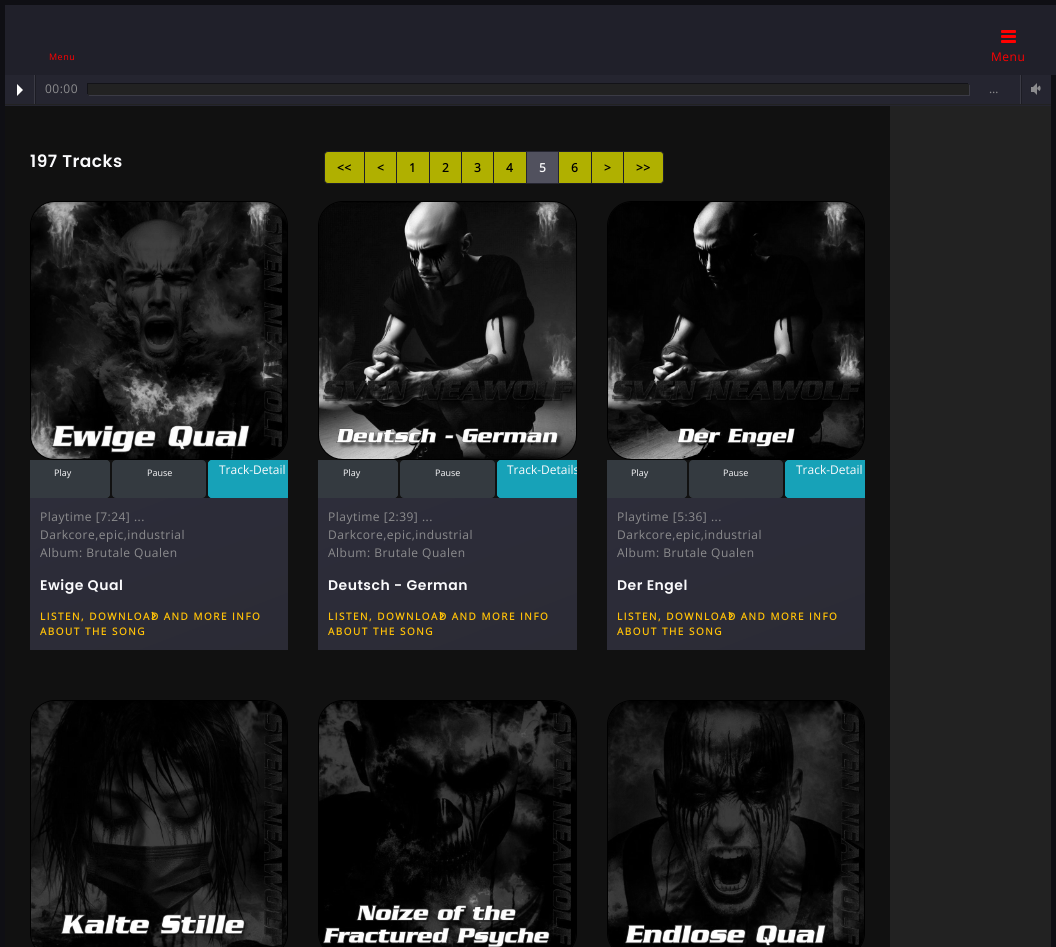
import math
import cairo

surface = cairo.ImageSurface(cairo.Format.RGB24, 1056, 947)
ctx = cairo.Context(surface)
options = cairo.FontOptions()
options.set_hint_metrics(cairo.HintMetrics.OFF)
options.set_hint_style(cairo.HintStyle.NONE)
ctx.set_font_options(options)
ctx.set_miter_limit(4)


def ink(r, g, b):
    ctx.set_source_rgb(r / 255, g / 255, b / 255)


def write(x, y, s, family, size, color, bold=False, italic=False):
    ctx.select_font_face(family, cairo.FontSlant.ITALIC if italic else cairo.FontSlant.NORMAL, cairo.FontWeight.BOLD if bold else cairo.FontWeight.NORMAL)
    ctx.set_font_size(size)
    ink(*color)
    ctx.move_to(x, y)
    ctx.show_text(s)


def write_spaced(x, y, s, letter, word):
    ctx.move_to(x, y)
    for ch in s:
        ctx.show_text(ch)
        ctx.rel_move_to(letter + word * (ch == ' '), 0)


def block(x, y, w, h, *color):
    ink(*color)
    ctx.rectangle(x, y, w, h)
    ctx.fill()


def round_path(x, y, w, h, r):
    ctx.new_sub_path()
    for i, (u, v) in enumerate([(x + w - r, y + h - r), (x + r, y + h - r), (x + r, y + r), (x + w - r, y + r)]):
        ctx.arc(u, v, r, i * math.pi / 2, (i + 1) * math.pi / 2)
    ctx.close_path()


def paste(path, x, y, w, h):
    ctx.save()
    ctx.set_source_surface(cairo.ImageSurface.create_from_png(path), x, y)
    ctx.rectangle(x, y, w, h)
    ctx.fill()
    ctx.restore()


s1 = dict(family="Open Sans", size=9, color=(250, 250, 252))
s2 = dict(family="Open Sans", size=12, color=(250, 250, 252))

ink(15, 15, 20)
ctx.paint()
block(5, 5, 1051, 70, 32, 32, 42)
ctx.select_font_face("Open Sans")
ctx.set_font_size(9)
ink(255, 0, 0)
write_spaced(49, 60, "Menu", 0.5, 0)
round_path(1001, 35, 15, 3, 1)
ctx.fill()
round_path(1001, 30, 15, 3, 1)
ctx.fill()
round_path(1001, 40, 15, 3, 1)
ctx.fill()
ctx.set_font_size(12)
write_spaced(991, 61, "Menu", 0.5, 0)
block(890, 106, 161, 841, 34, 34, 34)
block(5, 75, 1046, 31, 37, 37, 48)
block(5, 104, 1046, 1, 34, 34, 34)
block(34, 75, 1, 29, 59, 59, 69)
ink(255, 255, 255)
ctx.new_path()
ctx.move_to(17, 96)
ctx.line_to(17, 84)
ctx.line_to(23, 90)
ctx.close_path()
ctx.fill()
block(35, 75, 1, 29, 28, 28, 36)
ink(140, 140, 142)
write_spaced(45, 93, "00:00", 0.5, 0)
ink(59, 59, 69)
ctx.new_path()
ctx.move_to(89, 95)
ctx.line_to(89, 96)
ctx.line_to(970, 96)
ctx.line_to(970, 85)
ctx.line_to(969, 85)
ctx.line_to(969, 95)
ctx.close_path()
ctx.fill()
ink(19, 19, 24)
ctx.new_path()
ctx.move_to(87, 83)
ctx.line_to(87, 94)
ctx.line_to(88, 94)
ctx.line_to(88, 84)
ctx.line_to(968, 84)
ctx.line_to(968, 83)
ctx.close_path()
ctx.fill()
block(88, 84, 881, 11, 34, 34, 34)
block(1020, 75, 1, 29, 59, 59, 69)
ink(140, 140, 142)
write_spaced(989, 93, "…", 0.5, 0)
block(1021, 75, 1, 29, 28, 28, 36)
block(1031, 87, 3, 5, 140, 140, 142)
ctx.set_fill_rule(cairo.FillRule.EVEN_ODD)
ctx.new_path()
ctx.move_to(1039.5, 85.5)
ctx.curve_to(1041, 87, 1041, 89.5, 1039.5, 91)
ctx.line_to(1036.5, 88.5)
ctx.close_path()
ctx.move_to(1037, 88)
ctx.curve_to(1037.5, 88, 1037.5, 88.5, 1037, 89)
ctx.line_to(1036.5, 88.5)
ctx.close_path()
ctx.fill()
ctx.set_fill_rule(cairo.FillRule.WINDING)
ctx.new_path()
ctx.move_to(1037, 83)
ctx.line_to(1037, 95)
ctx.line_to(1031, 89)
ctx.close_path()
ctx.fill()
block(5, 106, 885, 841, 17, 17, 17)
ctx.select_font_face("Poppins SemiBold")
ctx.set_font_size(17)
ink(250, 250, 252)
write_spaced(30, 167, "197 Tracks", 0.5, 0)
ink(176, 176, 0)
ctx.new_path()
ctx.move_to(328, 151.5)
ctx.line_to(364.5, 151.5)
ctx.line_to(364.5, 183.5)
ctx.line_to(328, 183.5)
ctx.curve_to(326, 183.5, 324.5, 182, 324.5, 180)
ctx.line_to(324.5, 155)
ctx.curve_to(324.5, 153, 326, 151.5, 328, 151.5)
ctx.close_path()
ctx.fill_preserve()
ink(30, 30, 41)
ctx.set_line_width(1)
ctx.stroke()
ctx.select_font_face("Open Sans", cairo.FontSlant.NORMAL, cairo.FontWeight.BOLD)
ctx.set_font_size(12)
ink(0, 0, 0)
write_spaced(337, 172, "<<", 0.5, 0)
ink(176, 176, 0)
ctx.rectangle(364.5, 151.5, 32, 32)
ctx.fill_preserve()
ink(30, 30, 41)
ctx.stroke()
ink(0, 0, 0)
write_spaced(377, 172, "<", 0.5, 0)
ink(176, 176, 0)
ctx.rectangle(396.5, 151.5, 33, 32)
ctx.fill_preserve()
ink(30, 30, 41)
ctx.stroke()
ink(0, 0, 0)
write_spaced(409, 172, "1", 0.5, 0)
ink(176, 176, 0)
ctx.rectangle(429.5, 151.5, 32, 32)
ctx.fill_preserve()
ink(30, 30, 41)
ctx.stroke()
ink(0, 0, 0)
write_spaced(442, 172, "2", 0.5, 0)
ink(176, 176, 0)
ctx.rectangle(461.5, 151.5, 32, 32)
ctx.fill_preserve()
ink(30, 30, 41)
ctx.stroke()
ink(0, 0, 0)
write_spaced(474, 172, "3", 0.5, 0)
ink(176, 176, 0)
ctx.rectangle(493.5, 151.5, 33, 32)
ctx.fill_preserve()
ink(30, 30, 41)
ctx.stroke()
ink(0, 0, 0)
write_spaced(506, 172, "4", 0.5, 0)
ink(176, 176, 0)
ctx.rectangle(558.5, 151.5, 33, 32)
ctx.fill_preserve()
ink(30, 30, 41)
ctx.stroke()
ink(81, 81, 94)
ctx.rectangle(526.5, 151.5, 32, 32)
ctx.fill_preserve()
ink(37, 37, 48)
ctx.stroke()
ink(250, 250, 252)
write_spaced(539, 172, "5", 0.5, 0)
ink(0, 0, 0)
write_spaced(571, 172, "6", 0.5, 0)
ink(176, 176, 0)
ctx.rectangle(591.5, 151.5, 32, 32)
ctx.fill_preserve()
ink(30, 30, 41)
ctx.stroke()
ink(0, 0, 0)
write_spaced(604, 172, ">", 0.5, 0)
ink(176, 176, 0)
ctx.new_path()
ctx.move_to(623.5, 151.5)
ctx.line_to(660, 151.5)
ctx.curve_to(662, 151.5, 663.5, 153, 663.5, 155)
ctx.line_to(663.5, 180)
ctx.curve_to(663.5, 182, 662, 183.5, 660, 183.5)
ctx.line_to(623.5, 183.5)
ctx.close_path()
ctx.fill_preserve()
ink(30, 30, 41)
ctx.stroke()
ink(0, 0, 0)
write_spaced(636, 172, ">>", 0.5, 0)
round_path(30.5, 201.5, 257, 258, 24.5)
ctx.stroke()
paste("pic1.png", 31, 202, 256, 257)
ink(52, 58, 64)
ctx.new_path()
ctx.move_to(30, 460)
ctx.line_to(106, 460)
ctx.curve_to(108, 460, 110, 462, 110, 464)
ctx.line_to(110, 494)
ctx.curve_to(110, 496, 108, 498, 106, 498)
ctx.line_to(30, 498)
ctx.close_path()
ctx.fill()
ctx.save()
ctx.rectangle(30, 201, 258, 499)
ctx.clip()
round_path(16.5, 460.5, 93, 37, 3.5)
ctx.stroke()
ctx.restore()
write(54, 476, "Play", **s1)
ink(52, 58, 64)
round_path(112.5, 460.5, 93, 37, 3.5)
ctx.fill_preserve()
ctx.stroke()
write(147, 476, "Pause", **s1)
ink(23, 162, 184)
ctx.new_path()
ctx.move_to(212, 460)
ctx.line_to(288, 460)
ctx.line_to(288, 498)
ctx.line_to(212, 498)
ctx.curve_to(210, 498, 208, 496, 208, 494)
ctx.line_to(208, 464)
ctx.curve_to(208, 462, 210, 460, 212, 460)
ctx.close_path()
ctx.fill()
ctx.save()
ctx.rectangle(30, 201, 258, 499)
ctx.clip()
round_path(208.5, 460.5, 93, 37, 3.5)
ctx.stroke()
ctx.restore()
write(219, 474, "Track-Detail", **s2)
gradient = cairo.LinearGradient(117, 465, 201, 683)
gradient.add_color_stop_rgba(0, 0.176, 0.176, 0.227, 1)
gradient.add_color_stop_rgba(1, 0.169, 0.169, 0.208, 1)
ctx.set_source(gradient)
ctx.rectangle(30, 498, 258, 152)
ctx.fill()
ink(140, 140, 142)
write_spaced(40, 521, "Playtime [7:24] ...", 0.5, 0)
write_spaced(40, 539, "Darkcore,epic,industrial", 0.5, 0)
write_spaced(40, 557, "Album: Brutale Qualen", 0.5, 0)
ctx.select_font_face("Poppins SemiBold")
ctx.set_font_size(14)
ink(250, 250, 252)
write_spaced(40, 590, "Ewige Qual", 0.5, 0)
ctx.select_font_face("Open Sans", cairo.FontSlant.NORMAL, cairo.FontWeight.BOLD)
ctx.set_font_size(10)
ink(255, 193, 7)
write_spaced(40, 620, "LISTEN, DOWNLOAD AND MORE INFO", 1.5, 0)
paste("pic2.png", 151, 611, 6, 9)
write_spaced(40, 635, "ABOUT THE SONG", 1.5, 0)
round_path(318.5, 201.5, 258, 258, 24.5)
ink(0, 0, 0)
ctx.stroke()
paste("pic3.png", 319, 202, 257, 257)
ink(52, 58, 64)
ctx.new_path()
ctx.move_to(318, 460)
ctx.line_to(394, 460)
ctx.curve_to(396, 460, 398, 462, 398, 464)
ctx.line_to(398, 494)
ctx.curve_to(398, 496, 396, 498, 394, 498)
ctx.line_to(318, 498)
ctx.close_path()
ctx.fill()
ctx.save()
ctx.rectangle(318, 201, 259, 499)
ctx.clip()
round_path(304.5, 460.5, 93, 37, 3.5)
ctx.stroke()
ctx.restore()
write(343, 476, "Play", **s1)
ink(52, 58, 64)
round_path(400.5, 460.5, 94, 37, 3.5)
ctx.fill_preserve()
ctx.stroke()
write(435, 476, "Pause", **s1)
ink(23, 162, 184)
ctx.new_path()
ctx.move_to(501, 460)
ctx.line_to(577, 460)
ctx.line_to(577, 498)
ctx.line_to(501, 498)
ctx.curve_to(499, 498, 497, 496, 497, 494)
ctx.line_to(497, 464)
ctx.curve_to(497, 462, 499, 460, 501, 460)
ctx.close_path()
ctx.fill()
ctx.save()
ctx.rectangle(318, 201, 259, 499)
ctx.clip()
round_path(497.5, 460.5, 93, 37, 3.5)
ctx.stroke()
write(507, 474, "Track-Details", **s2)
ctx.restore()
gradient = cairo.LinearGradient(405, 464, 490, 684)
gradient.add_color_stop_rgba(0, 0.176, 0.176, 0.227, 1)
gradient.add_color_stop_rgba(1, 0.169, 0.169, 0.208, 1)
ctx.set_source(gradient)
ctx.rectangle(318, 498, 259, 152)
ctx.fill()
ctx.set_font_size(12)
ink(140, 140, 142)
write_spaced(328, 521, "Playtime [2:39] ...", 0.5, 0)
write_spaced(328, 539, "Darkcore,epic,industrial", 0.5, 0)
write_spaced(328, 557, "Album: Brutale Qualen", 0.5, 0)
ctx.select_font_face("Poppins SemiBold")
ctx.set_font_size(14)
ink(250, 250, 252)
write_spaced(328, 590, "Deutsch - German", 0.5, 0)
ctx.select_font_face("Open Sans", cairo.FontSlant.NORMAL, cairo.FontWeight.BOLD)
ctx.set_font_size(10)
ink(255, 193, 7)
write_spaced(328, 620, "LISTEN, DOWNLOAD AND MORE INFO", 1.5, 0)
paste("pic4.png", 439, 611, 6, 9)
write_spaced(328, 635, "ABOUT THE SONG", 1.5, 0)
round_path(607.5, 201.5, 257, 258, 24.5)
ink(0, 0, 0)
ctx.stroke()
paste("pic5.png", 608, 202, 256, 257)
ink(52, 58, 64)
ctx.new_path()
ctx.move_to(607, 460)
ctx.line_to(683, 460)
ctx.curve_to(685, 460, 687, 462, 687, 464)
ctx.line_to(687, 494)
ctx.curve_to(687, 496, 685, 498, 683, 498)
ctx.line_to(607, 498)
ctx.close_path()
ctx.fill()
ctx.save()
ctx.rectangle(607, 201, 258, 499)
ctx.clip()
round_path(593.5, 460.5, 93, 37, 3.5)
ctx.stroke()
ctx.restore()
write(631, 476, "Play", **s1)
ink(52, 58, 64)
round_path(689.5, 460.5, 93, 37, 3.5)
ctx.fill_preserve()
ctx.stroke()
write(723, 476, "Pause", **s1)
ink(23, 162, 184)
ctx.new_path()
ctx.move_to(789, 460)
ctx.line_to(865, 460)
ctx.line_to(865, 498)
ctx.line_to(789, 498)
ctx.curve_to(787, 498, 785, 496, 785, 494)
ctx.line_to(785, 464)
ctx.curve_to(785, 462, 787, 460, 789, 460)
ctx.close_path()
ctx.fill()
ctx.save()
ctx.rectangle(607, 201, 258, 499)
ctx.clip()
round_path(785.5, 460.5, 93, 37, 3.5)
ctx.stroke()
ctx.restore()
write(796, 474, "Track-Detail", **s2)
gradient = cairo.LinearGradient(694, 465, 778, 683)
gradient.add_color_stop_rgba(0, 0.176, 0.176, 0.227, 1)
gradient.add_color_stop_rgba(1, 0.169, 0.169, 0.208, 1)
ctx.set_source(gradient)
ctx.rectangle(607, 498, 258, 152)
ctx.fill()
ink(140, 140, 142)
write_spaced(617, 521, "Playtime [5:36] ...", 0.5, 0)
write_spaced(617, 539, "Darkcore,epic,industrial", 0.5, 0)
write_spaced(617, 557, "Album: Brutale Qualen", 0.5, 0)
ctx.select_font_face("Poppins SemiBold")
ctx.set_font_size(14)
ink(250, 250, 252)
write_spaced(617, 590, "Der Engel", 0.5, 0)
ctx.select_font_face("Open Sans", cairo.FontSlant.NORMAL, cairo.FontWeight.BOLD)
ctx.set_font_size(10)
ink(255, 193, 7)
write_spaced(617, 620, "LISTEN, DOWNLOAD AND MORE INFO", 1.5, 0)
paste("pic6.png", 728, 611, 5, 9)
write_spaced(617, 635, "ABOUT THE SONG", 1.5, 0)
round_path(30.5, 700.5, 257, 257, 24.5)
ink(0, 0, 0)
ctx.stroke()
paste("pic7.png", 31, 701, 256, 246)
round_path(318.5, 700.5, 258, 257, 24.5)
ctx.stroke()
paste("pic8.png", 319, 701, 257, 246)
round_path(607.5, 700.5, 257, 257, 24.5)
ctx.stroke()
paste("pic9.png", 608, 701, 256, 246)
surface.write_to_png("screenshot.png")
